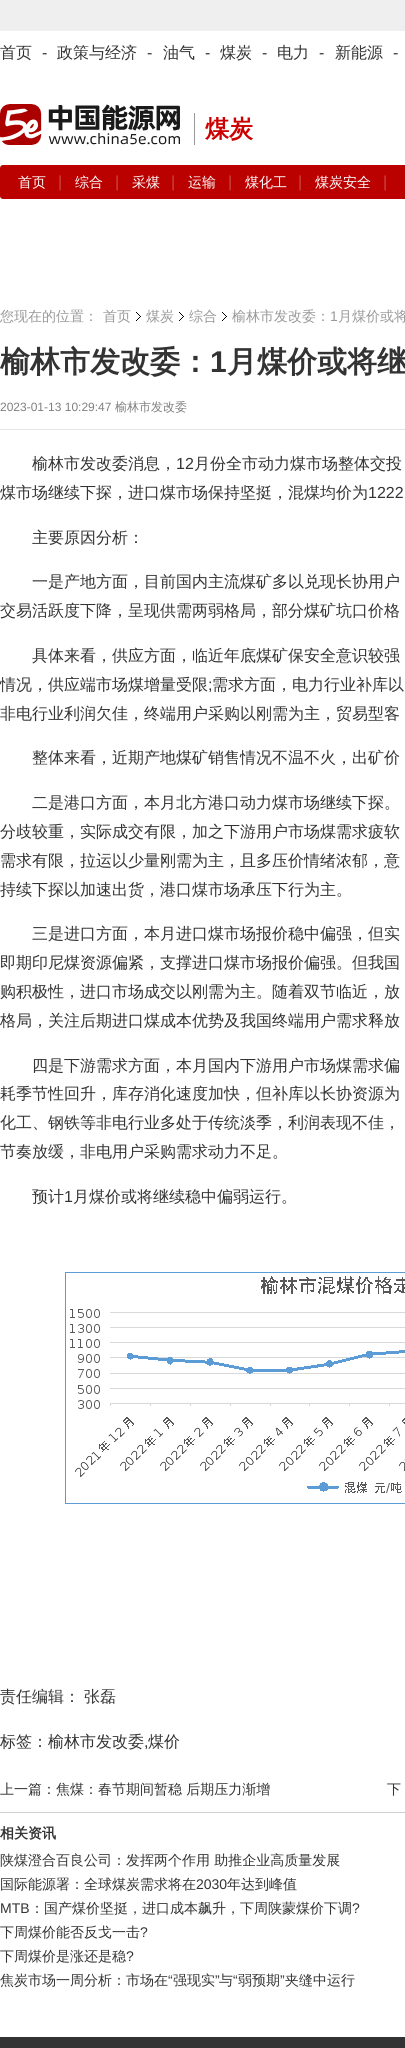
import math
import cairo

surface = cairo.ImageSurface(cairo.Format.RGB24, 405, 2048)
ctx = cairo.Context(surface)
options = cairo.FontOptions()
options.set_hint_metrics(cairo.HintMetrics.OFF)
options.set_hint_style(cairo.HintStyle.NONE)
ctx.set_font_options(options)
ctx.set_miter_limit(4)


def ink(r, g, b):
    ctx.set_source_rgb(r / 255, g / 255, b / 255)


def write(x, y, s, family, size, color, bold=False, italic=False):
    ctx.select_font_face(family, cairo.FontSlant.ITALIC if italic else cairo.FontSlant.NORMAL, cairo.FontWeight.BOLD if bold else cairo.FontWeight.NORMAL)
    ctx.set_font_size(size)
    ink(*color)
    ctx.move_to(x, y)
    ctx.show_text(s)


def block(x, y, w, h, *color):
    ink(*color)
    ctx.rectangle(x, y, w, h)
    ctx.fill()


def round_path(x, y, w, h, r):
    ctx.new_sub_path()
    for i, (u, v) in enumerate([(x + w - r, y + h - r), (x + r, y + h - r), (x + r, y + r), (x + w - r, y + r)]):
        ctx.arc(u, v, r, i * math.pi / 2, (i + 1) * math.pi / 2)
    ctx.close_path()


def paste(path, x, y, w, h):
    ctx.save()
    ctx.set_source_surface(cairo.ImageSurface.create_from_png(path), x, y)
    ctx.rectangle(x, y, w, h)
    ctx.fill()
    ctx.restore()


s1 = dict(family="WenQuanYi Zen Hei Medium", size=16, color=(51, 51, 51))
s2 = dict(family="Liberation Sans", size=16, color=(51, 51, 51))
s3 = dict(family="WenQuanYi Zen Hei", size=24, color=(204, 0, 0), bold=True)
s4 = dict(family="WenQuanYi Zen Hei Medium", size=14, color=(255, 255, 255))
s5 = dict(family="Liberation Sans", size=16, color=(202, 71, 71))
s6 = dict(family="WenQuanYi Zen Hei Medium", size=14, color=(153, 153, 153))
s7 = dict(family="Liberation Sans", size=14, color=(153, 153, 153))
s8 = dict(family="WenQuanYi Zen Hei", size=30, color=(51, 51, 51), bold=True)
s9 = dict(family="Liberation Sans", size=30, color=(51, 51, 51), bold=True)
s10 = dict(family="Liberation Sans", size=12, color=(127, 127, 127))
s11 = dict(family="WenQuanYi Zen Hei Medium", size=12, color=(127, 127, 127))
s12 = dict(family="WenQuanYi Zen Hei Medium", size=14, color=(51, 51, 51))
s13 = dict(family="WenQuanYi Zen Hei", size=14, color=(51, 51, 51), bold=True)
s14 = dict(family="Liberation Sans", size=14, color=(51, 51, 51))

ink(255, 255, 255)
ctx.paint()
block(0, 0, 405, 31, 239, 239, 239)
write(0, 58, "首页", **s1)
write(42, 58, "-", **s2)
write(57, 58, "政策与经济", **s1)
write(147, 58, "-", **s2)
write(163, 58, "油气", **s1)
write(205, 58, "-", **s2)
write(220, 58, "煤炭", **s1)
write(262, 58, "-", **s2)
write(277, 58, "电力", **s1)
write(319, 58, "-", **s2)
write(335, 58, "新能源", **s1)
write(393, 58, "-", **s2)
paste("pic1.png", 0, 104, 180, 41)
block(194, 113, 1, 32, 153, 153, 153)
write(205, 137, "煤炭", **s3)
ink(187, 0, 0)
round_path(0, 165, 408, 34, 3)
ctx.fill()
write(18, 187, "首页", **s4)
write(58, 187, "|", **s5)
write(75, 187, "综合", **s4)
write(115, 187, "|", **s5)
write(132, 187, "采煤", **s4)
write(171, 187, "|", **s5)
write(188, 187, "运输", **s4)
write(228, 187, "|", **s5)
write(245, 187, "煤化工", **s4)
write(298, 187, "|", **s5)
write(315, 187, "煤炭安全", **s4)
write(383, 187, "|", **s5)
write(0, 321, "您现在的位置：", **s6)
paste("pic2.png", 136, 312, 5, 9)
write(103, 321, "首页", **s6)
paste("pic2.png", 179, 312, 5, 9)
write(146, 321, "煤炭", **s6)
write(189, 321, "综合", **s6)
paste("pic2.png", 222, 312, 5, 9)
write(232, 321, "榆林市发改委：", **s6)
write(330, 321, "1", **s7)
write(338, 321, "月煤价或将", **s6)
block(0, 429, 405, 1, 229, 229, 229)
write(0, 372, "榆林市发改委：", **s8)
write(210, 372, "1", **s9)
write(227, 372, "月煤价或将继", **s8)
write(0, 411, "2023-01-13 10:29:47", **s10)
write(115, 411, "榆林市发改委", **s11)
write(32, 469, "榆林市发改委消息，", **s1)
write(176, 469, "12", **s2)
write(194, 469, "月份全市动力煤市场整体交投", **s1)
write(0, 498, "煤市场继续下探，进口煤市场保持坚挺，混煤均价为", **s1)
write(368, 498, "1222", **s2)
write(32, 543, "主要原因分析：", **s1)
write(32, 587, "一是产地方面，目前国内主流煤矿多以兑现长协用户", **s1)
write(0, 616, "交易活跃度下降，呈现供需两弱格局，部分煤矿坑口价格", **s1)
write(32, 661, "具体来看，供应方面，临近年底煤矿保安全意识较强", **s1)
write(0, 690, "情况，供应端市场煤增量受限", **s1)
write(208, 690, ";", **s2)
write(212, 690, "需求方面，电力行业补库以", **s1)
write(0, 719, "非电行业利润欠佳，终端用户采购以刚需为主，贸易型客", **s1)
write(32, 763, "整体来看，近期产地煤矿销售情况不温不火，出矿价", **s1)
write(32, 808, "二是港口方面，本月北方港口动力煤市场继续下探。", **s1)
write(0, 837, "分歧较重，实际成交有限，加之下游用户市场煤需求疲软", **s1)
write(0, 866, "需求有限，拉运以少量刚需为主，且多压价情绪浓郁，意", **s1)
write(0, 895, "持续下探以加速出货，港口煤市场承压下行为主。", **s1)
write(32, 939, "三是进口方面，本月进口煤市场报价稳中偏强，但实", **s1)
write(0, 968, "即期印尼煤资源偏紧，支撑进口煤市场报价偏强。但我国", **s1)
write(0, 997, "购积极性，进口市场成交以刚需为主。随着双节临近，放", **s1)
write(0, 1026, "格局，关注后期进口煤成本优势及我国终端用户需求释放", **s1)
write(32, 1071, "四是下游需求方面，本月国内下游用户市场煤需求偏", **s1)
write(0, 1099, "耗季节性回升，库存消化速度加快，但补库以长协资源为", **s1)
write(0, 1128, "化工、钢铁等非电行业多处于传统淡季，利润表现不佳，", **s1)
write(0, 1157, "节奏放缓，非电用户采购需求动力不足。", **s1)
write(32, 1202, "预计", **s1)
write(64, 1202, "1", **s2)
write(73, 1202, "月煤价或将继续稳中偏弱运行。", **s1)
paste("pic3.png", 65, 1272, 340, 232)
write(0, 1702, "责任编辑：", **s1)
write(84, 1702, "张磊", **s1)
write(0, 1747, "标签：榆林市发改委", **s1)
write(144, 1747, ",", **s2)
write(148, 1747, "煤价", **s1)
write(0, 1794, "上一篇：焦煤：春节期间暂稳 后期压力渐增", **s12)
write(387, 1794, "下", **s12)
block(0, 1812, 405, 1, 208, 208, 208)
write(0, 1838, "相关资讯", **s13)
write(0, 1865, "陕煤澄合百良公司：发挥两个作用 助推企业高质量发展", **s12)
write(0, 1889, "国际能源署：全球煤炭需求将在", **s12)
write(196, 1889, "2030", **s14)
write(227, 1889, "年达到峰值", **s12)
write(0, 1913, "MTB", **s14)
write(30, 1913, "：国产煤价坚挺，进口成本飙升，下周陕蒙煤价下调", **s12)
write(352, 1913, "?", **s14)
write(0, 1937, "下周煤价能否反戈一击", **s12)
write(140, 1937, "?", **s14)
write(0, 1961, "下周煤价是涨还是稳", **s12)
write(126, 1961, "?", **s14)
write(0, 1985, "焦炭市场一周分析：市场在", **s12)
write(168, 1985, "“", **s14)
write(173, 1985, "强现实", **s12)
write(215, 1985, "”", **s14)
write(219, 1985, "与", **s12)
write(233, 1985, "“", **s14)
write(238, 1985, "弱预期", **s12)
write(280, 1985, "”", **s14)
write(285, 1985, "夹缝中运行", **s12)
block(0, 2037, 405, 11, 51, 51, 51)
surface.write_to_png("screenshot.png")
